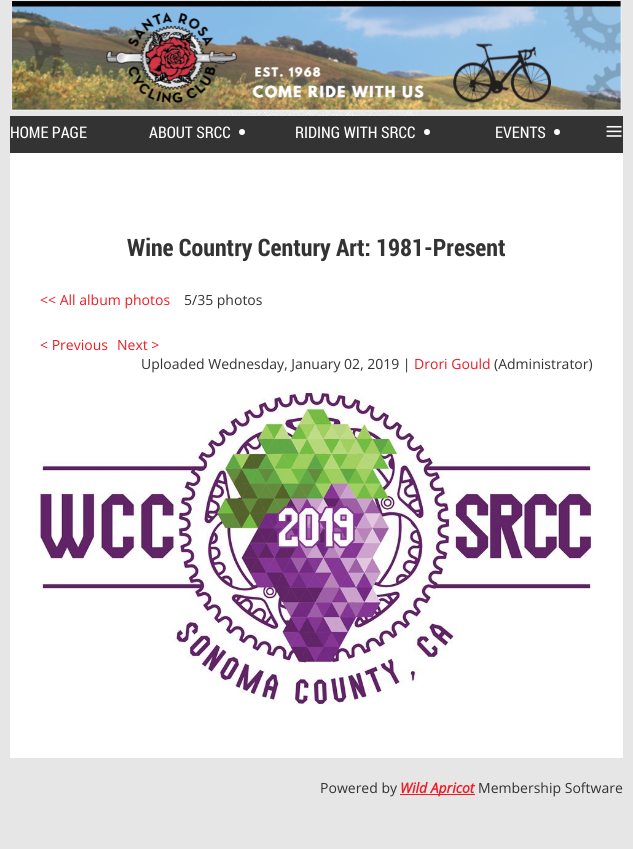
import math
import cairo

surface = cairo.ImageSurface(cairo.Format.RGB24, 633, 849)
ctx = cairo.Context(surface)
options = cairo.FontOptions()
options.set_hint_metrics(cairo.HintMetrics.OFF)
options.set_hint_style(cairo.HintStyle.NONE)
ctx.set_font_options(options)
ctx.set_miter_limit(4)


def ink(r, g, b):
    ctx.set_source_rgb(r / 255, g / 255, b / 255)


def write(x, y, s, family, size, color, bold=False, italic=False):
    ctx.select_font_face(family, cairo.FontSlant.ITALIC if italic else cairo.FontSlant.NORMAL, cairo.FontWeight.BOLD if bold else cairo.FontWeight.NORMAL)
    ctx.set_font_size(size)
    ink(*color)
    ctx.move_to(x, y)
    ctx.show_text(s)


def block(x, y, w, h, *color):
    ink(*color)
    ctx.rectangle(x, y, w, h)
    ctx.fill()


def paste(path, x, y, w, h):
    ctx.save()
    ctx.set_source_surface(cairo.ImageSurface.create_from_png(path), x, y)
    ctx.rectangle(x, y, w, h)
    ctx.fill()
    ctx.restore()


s1 = dict(family="Roboto Condensed", size=16, color=(254, 254, 254))
s2 = dict(family="Liberation Serif", size=32, color=(254, 254, 254))
s3 = dict(family="Roboto Condensed", size=24, color=(51, 51, 51), bold=True)
s4 = dict(family="Open Sans", size=14, color=(237, 28, 36))
s5 = dict(family="Open Sans", size=14, color=(51, 51, 51))
s6 = dict(family="Open Sans", size=14, color=(237, 28, 36), bold=True, italic=True)

ink(230, 230, 230)
ctx.paint()
paste("pic1.png", 217, 0, 200, 116)
paste("pic2.png", 11, 0, 611, 112)
block(10, 116, 613, 37, 51, 51, 51)
write(10, 138, "HOME PAGE", **s1)
write(149, 138, "ABOUT SRCC", **s1)
ink(255, 255, 255)
ctx.new_path()
ctx.arc(242, 132, 3, 0, 2 * math.pi)
ctx.fill()
write(295, 138, "RIDING WITH SRCC", **s1)
ink(255, 255, 255)
ctx.new_path()
ctx.arc(427, 132, 3, 0, 2 * math.pi)
ctx.fill()
write(495, 138, "EVENTS", **s1)
ink(255, 255, 255)
ctx.new_path()
ctx.arc(557, 132, 3, 0, 2 * math.pi)
ctx.fill()
write(605, 142, "≡", **s2)
block(10, 153, 613, 605, 255, 255, 255)
write(127, 256, "Wine Country Century Art: 1981-Present", **s3)
write(40, 305, "<< All album photos", **s4)
write(184, 305, "5/35 photos", **s5)
write(40, 350, "< Previous", **s4)
write(117, 350, "Next >", **s4)
write(141, 369, "Uploaded Wednesday, January 02, 2019 |", **s5)
write(414, 369, "Drori Gould", **s4)
write(494, 369, "(Administrator)", **s5)
paste("pic3.png", 40, 393, 553, 311)
write(320, 793, "Powered by", **s5)
block(400, 794, 75, 1, 237, 28, 36)
write(400, 793, "Wild Apricot", **s6)
write(478, 793, "Membership Software", **s5)
surface.write_to_png("screenshot.png")
